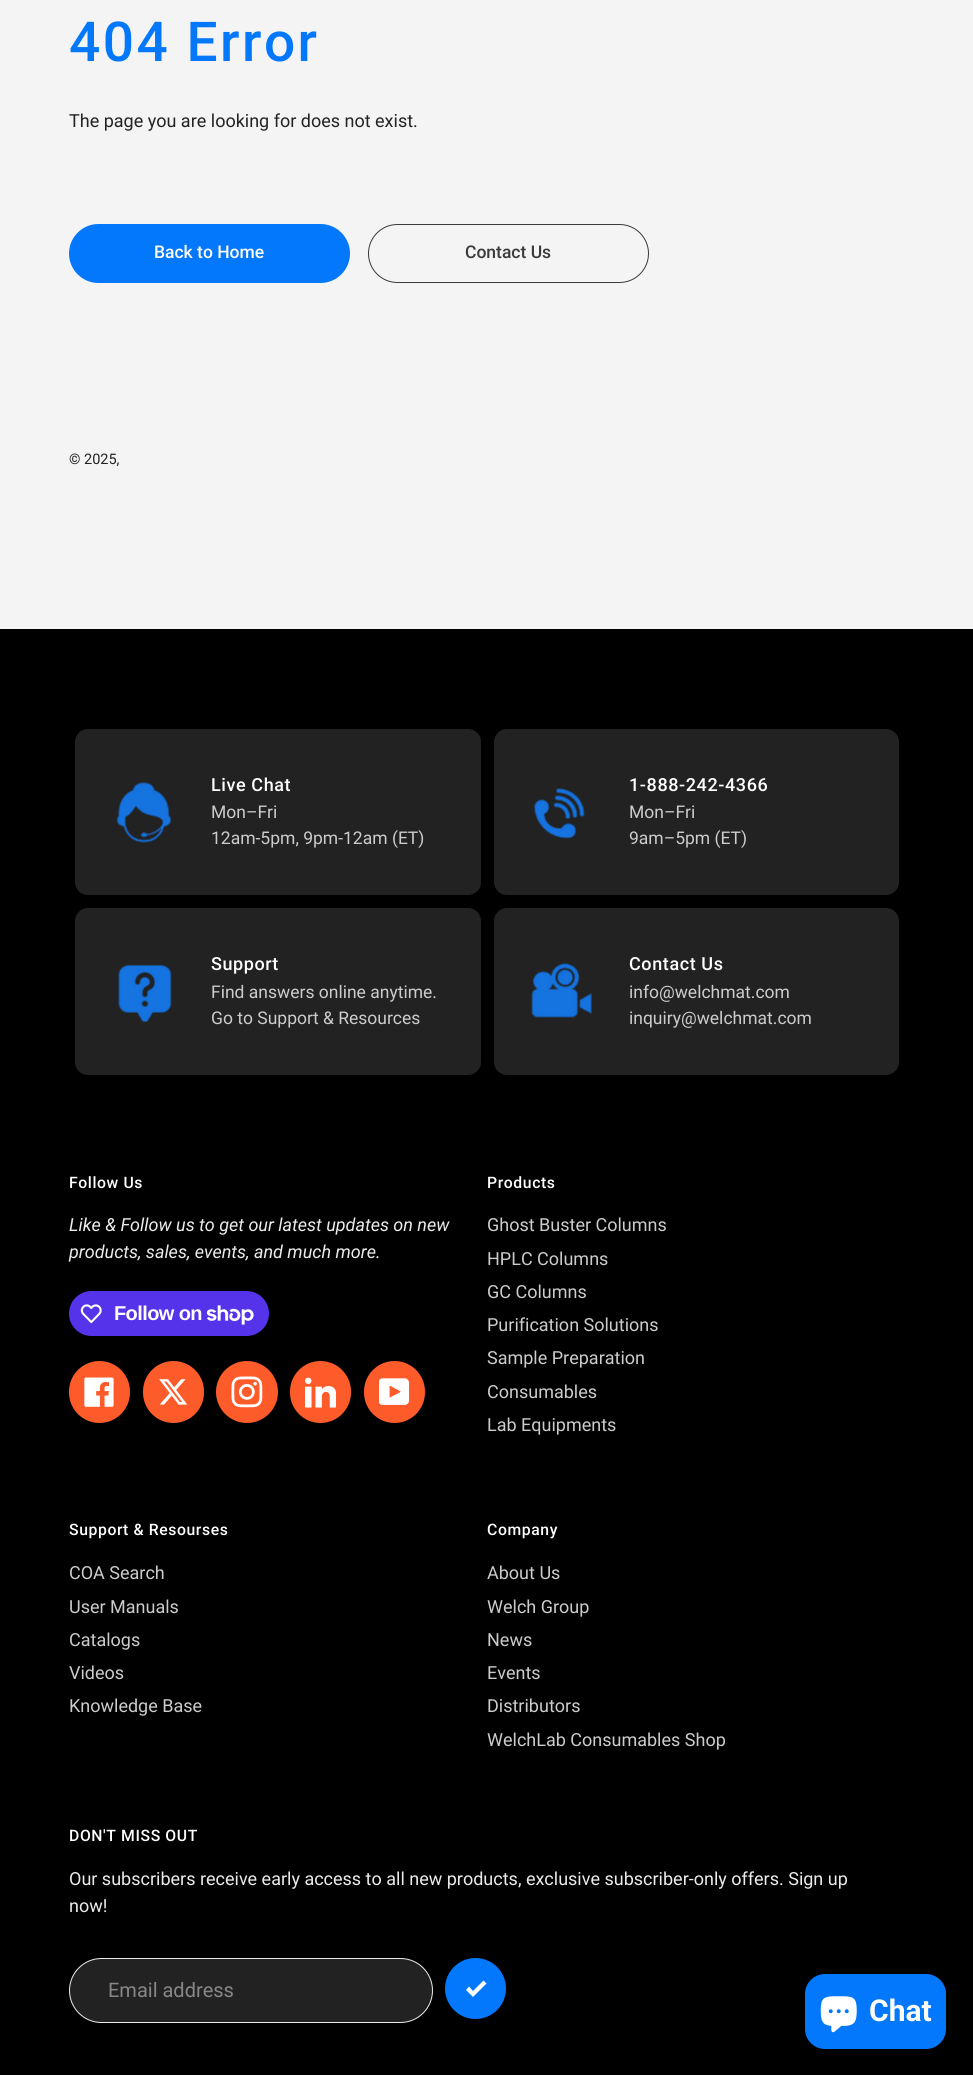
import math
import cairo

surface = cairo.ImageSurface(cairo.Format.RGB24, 973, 2075)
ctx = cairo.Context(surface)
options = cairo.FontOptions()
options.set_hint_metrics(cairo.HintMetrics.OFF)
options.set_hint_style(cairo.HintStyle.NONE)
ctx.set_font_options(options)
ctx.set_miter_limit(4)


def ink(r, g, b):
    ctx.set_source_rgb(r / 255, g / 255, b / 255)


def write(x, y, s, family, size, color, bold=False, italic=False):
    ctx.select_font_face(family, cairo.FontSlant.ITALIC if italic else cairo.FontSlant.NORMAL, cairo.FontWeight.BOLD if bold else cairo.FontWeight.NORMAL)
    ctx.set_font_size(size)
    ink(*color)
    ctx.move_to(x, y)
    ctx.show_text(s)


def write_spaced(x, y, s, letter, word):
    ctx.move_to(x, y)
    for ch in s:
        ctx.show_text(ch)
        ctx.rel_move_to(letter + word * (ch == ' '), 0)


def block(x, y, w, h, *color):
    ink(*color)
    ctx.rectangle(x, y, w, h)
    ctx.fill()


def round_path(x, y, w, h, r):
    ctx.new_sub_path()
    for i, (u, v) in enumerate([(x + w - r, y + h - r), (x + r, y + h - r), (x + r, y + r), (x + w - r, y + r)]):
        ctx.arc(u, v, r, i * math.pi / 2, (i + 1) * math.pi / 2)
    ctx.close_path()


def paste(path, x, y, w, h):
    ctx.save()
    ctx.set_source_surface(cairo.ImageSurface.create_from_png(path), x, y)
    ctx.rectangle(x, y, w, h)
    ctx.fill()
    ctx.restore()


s1 = dict(family="Roboto", size=18, color=(35, 35, 35))
s2 = dict(family="Roboto Medium", size=17.5, color=(255, 255, 255))
s3 = dict(family="Roboto Medium", size=17.5, color=(58, 58, 58))
s4 = dict(family="Roboto", size=14.5, color=(35, 35, 35))
s5 = dict(family="Roboto", size=17.5, color=(204, 204, 204))
s6 = dict(family="Roboto", size=18, color=(235, 235, 235), italic=True)
s7 = dict(family="Roboto", size=18, color=(204, 204, 204))
s8 = dict(family="Roboto", size=18, color=(235, 235, 235))
s9 = dict(family="Roboto", size=20, color=(135, 135, 135))
s10 = dict(family="Roboto", size=30, color=(255, 255, 255), bold=True)

ink(244, 244, 244)
ctx.paint()
ctx.select_font_face("Roboto Medium")
ctx.set_font_size(55)
ink(3, 120, 252)
write_spaced(69, 61, "404 Error", 2.5, 0)
write(69, 127, "The page you are looking for does not exist.", **s1)
ink(3, 120, 252)
round_path(69, 224, 281, 59, 29.5)
ctx.fill()
write(154, 258, "Back to Home", **s2)
round_path(368.5, 224.5, 280, 58, 29)
ink(58, 58, 58)
ctx.set_line_width(1)
ctx.stroke()
write(465, 258, "Contact Us", **s3)
write(69, 464, "© 2025,", **s4)
block(0, 629, 973, 1446, 0, 0, 0)
ink(34, 34, 34)
round_path(75, 729, 406, 166, 13)
ctx.fill()
paste("pic1.png", 116, 782, 56, 61)
ctx.select_font_face("Roboto Medium")
ctx.set_font_size(18)
ink(255, 255, 255)
write_spaced(211, 791, "Live Chat", 0.6, 0)
write(211, 818, "Mon–Fri", **s5)
write(211, 844, "12am-5pm, 9pm-12am (ET)", **s5)
ink(34, 34, 34)
round_path(494, 729, 405, 166, 13)
ctx.fill()
paste("pic2.png", 534, 788, 51, 51)
ctx.select_font_face("Roboto Medium")
ctx.set_font_size(18)
ink(255, 255, 255)
write_spaced(629, 791, "1-888-242-4366", 0.6, 0)
write(629, 818, "Mon–Fri", **s5)
write(629, 844, "9am–5pm (ET)", **s5)
ink(34, 34, 34)
round_path(75, 908, 406, 167, 13)
ctx.fill()
paste("pic3.png", 118, 964, 54, 58)
ctx.select_font_face("Roboto Medium")
ctx.set_font_size(18)
ink(255, 255, 255)
write_spaced(211, 970, "Support", 0.6, 0)
write(211, 998, "Find answers online anytime.", **s5)
write(211, 1024, "Go to Support & Resources", **s5)
ink(34, 34, 34)
round_path(494, 908, 405, 167, 13)
ctx.fill()
paste("pic4.png", 531, 963, 61, 55)
ctx.select_font_face("Roboto Medium")
ctx.set_font_size(18)
ink(255, 255, 255)
write_spaced(629, 970, "Contact Us", 0.6, 0)
write(629, 998, "info@welchmat.com", **s5)
write(629, 1024, "inquiry@welchmat.com", **s5)
ctx.select_font_face("Roboto Medium")
ctx.set_font_size(15.75)
ink(255, 255, 255)
write_spaced(69, 1188, "Follow Us", 0.6, 0)
write(69, 1231, "Like & Follow us to get our latest updates on new", **s6)
write(69, 1258, "products, sales, events, and much more.", **s6)
ink(84, 51, 235)
round_path(69, 1291, 200, 45, 22.5)
ctx.fill()
paste("pic5.png", 80, 1304, 22, 20)
ctx.select_font_face("Liberation Sans", cairo.FontSlant.NORMAL, cairo.FontWeight.BOLD)
ctx.set_font_size(20)
ink(255, 255, 255)
write_spaced(114, 1320, "Follow on", -0.6, 0)
paste("pic6.png", 206, 1305, 48, 20)
ink(253, 91, 42)
round_path(69, 1361, 61, 62, 30.5)
ctx.fill()
paste("pic7.png", 84, 1377, 30, 30)
round_path(143, 1361, 61, 62, 30.5)
ctx.fill()
paste("pic8.png", 159, 1379, 29, 26)
ctx.arc(247, 1392, 31, 0, 2 * math.pi)
ctx.fill()
paste("pic9.png", 231, 1376, 32, 32)
round_path(290, 1361, 61, 62, 30.5)
ctx.fill()
paste("pic10.png", 305, 1377, 31, 31)
round_path(364, 1361, 61, 62, 30.5)
ctx.fill()
paste("pic11.png", 379, 1378, 30, 27)
ctx.select_font_face("Roboto Medium")
ctx.set_font_size(15.75)
ink(255, 255, 255)
write_spaced(487, 1188, "Products", 0.6, 0)
write(487, 1231, "Ghost Buster Columns", **s7)
write(487, 1265, "HPLC Columns", **s7)
write(487, 1298, "GC Columns", **s7)
write(487, 1331, "Purification Solutions", **s7)
write(487, 1364, "Sample Preparation", **s7)
write(487, 1398, "Consumables", **s7)
write(487, 1431, "Lab Equipments", **s7)
ctx.select_font_face("Roboto Medium")
ctx.set_font_size(15.75)
ink(255, 255, 255)
write_spaced(69, 1535, "Support & Resourses", 0.6, 0)
write(69, 1579, "COA Search", **s7)
write(69, 1613, "User Manuals", **s7)
write(69, 1646, "Catalogs", **s7)
write(69, 1679, "Videos", **s7)
write(69, 1712, "Knowledge Base", **s7)
ctx.select_font_face("Roboto Medium")
ctx.set_font_size(15.75)
ink(255, 255, 255)
write_spaced(487, 1535, "Company", 0.6, 0)
write(487, 1579, "About Us", **s7)
write(487, 1613, "Welch Group", **s7)
write(487, 1646, "News", **s7)
write(487, 1679, "Events", **s7)
write(487, 1712, "Distributors", **s7)
write(487, 1746, "WelchLab Consumables Shop", **s7)
ctx.select_font_face("Roboto Medium")
ctx.set_font_size(15.75)
ink(255, 255, 255)
write_spaced(69, 1841, "DON'T MISS OUT", 0.6, 0)
write(69, 1885, "Our subscribers receive early access to all new products, exclusive subscriber-only offers. Sign up", **s8)
write(69, 1912, "now!", **s8)
ink(34, 34, 34)
round_path(69.5, 1958.5, 363, 64, 32)
ctx.fill_preserve()
ink(235, 235, 235)
ctx.stroke()
write(108, 1997, "Email address", **s9)
ink(3, 120, 252)
ctx.new_path()
ctx.arc(475.5, 1988.5, 30.5, 0, 2 * math.pi)
ctx.fill()
ink(255, 255, 255)
ctx.new_path()
ctx.move_to(473, 1997)
ctx.line_to(466, 1990)
ctx.line_to(469, 1986.5)
ctx.line_to(473, 1991)
ctx.line_to(483.5, 1980.5)
ctx.line_to(486.5, 1983.5)
ctx.close_path()
ctx.fill()
ink(3, 120, 252)
round_path(805, 1974, 141, 75, 20)
ctx.fill()
paste("pic12.png", 820, 1996, 37, 37)
write(869, 2021, "Chat", **s10)
surface.write_to_png("screenshot.png")
